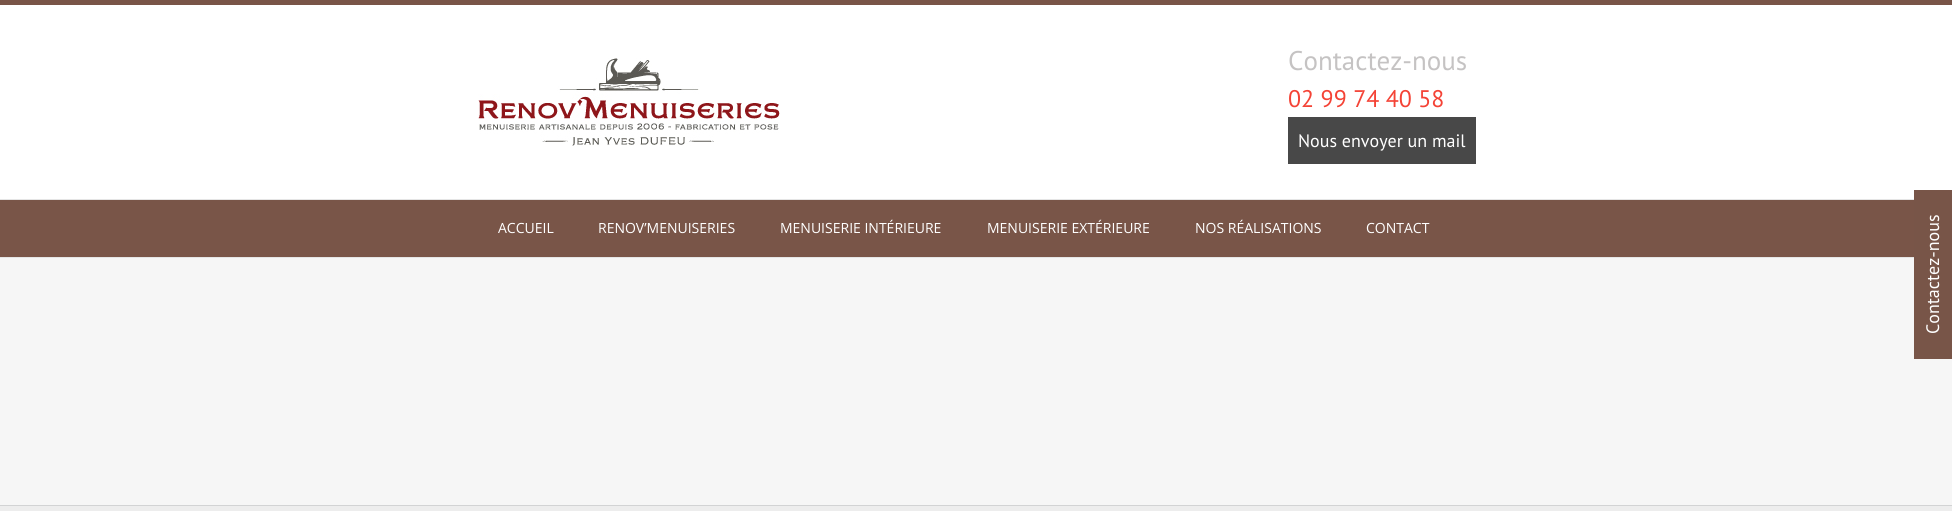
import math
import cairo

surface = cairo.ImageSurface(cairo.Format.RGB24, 1952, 511)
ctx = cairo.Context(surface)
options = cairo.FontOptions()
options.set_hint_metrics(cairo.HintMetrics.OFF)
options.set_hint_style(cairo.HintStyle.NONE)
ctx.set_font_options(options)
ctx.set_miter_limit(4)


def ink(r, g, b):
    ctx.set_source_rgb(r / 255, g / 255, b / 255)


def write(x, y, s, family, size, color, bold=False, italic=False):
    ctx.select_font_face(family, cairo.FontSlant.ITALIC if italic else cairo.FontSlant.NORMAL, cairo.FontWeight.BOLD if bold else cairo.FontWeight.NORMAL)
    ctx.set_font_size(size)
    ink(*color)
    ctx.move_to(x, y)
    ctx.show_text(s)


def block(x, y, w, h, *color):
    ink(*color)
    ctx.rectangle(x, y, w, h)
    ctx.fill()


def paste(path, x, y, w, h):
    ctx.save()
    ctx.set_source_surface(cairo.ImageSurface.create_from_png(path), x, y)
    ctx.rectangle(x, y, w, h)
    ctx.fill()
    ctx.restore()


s1 = dict(family="PT Sans", size=27, color=(197, 195, 195))
s2 = dict(family="PT Sans", size=24, color=(244, 67, 54))
s3 = dict(family="PT Sans", size=18, color=(255, 255, 255))
s4 = dict(family="Open Sans", size=14, color=(255, 255, 255))

ink(237, 237, 237)
ctx.paint()
block(0, 5, 1952, 194, 255, 255, 255)
block(0, 0, 1952, 5, 121, 85, 72)
block(0, 199, 1914, 1, 229, 229, 229)
paste("pic1.png", 478, 58, 302, 88)
write(1288, 70, "Contactez-nous", **s1)
write(1288, 107, "02 99 74 40 58", **s2)
block(1288, 117, 188, 47, 72, 72, 72)
write(1298, 147, "Nous envoyer un mail", **s3)
block(0, 200, 1914, 57, 121, 85, 72)
block(0, 257, 1914, 1, 229, 229, 229)
write(498, 233, "ACCUEIL", **s4)
write(598, 233, "RENOV’MENUISERIES", **s4)
write(780, 233, "MENUISERIE INTÉRIEURE", **s4)
write(987, 233, "MENUISERIE EXTÉRIEURE", **s4)
write(1195, 233, "NOS RÉALISATIONS", **s4)
write(1366, 233, "CONTACT", **s4)
block(0, 258, 1952, 247, 246, 246, 246)
block(0, 505, 1952, 1, 210, 211, 212)
block(1914, 190, 38, 169, 120, 85, 72)
ctx.save()
ctx.translate(1939, 334)
ctx.rotate(-90 * math.pi / 180)
write(0, 0, "Contactez-nous", **s3)
ctx.restore()
surface.write_to_png("screenshot.png")
